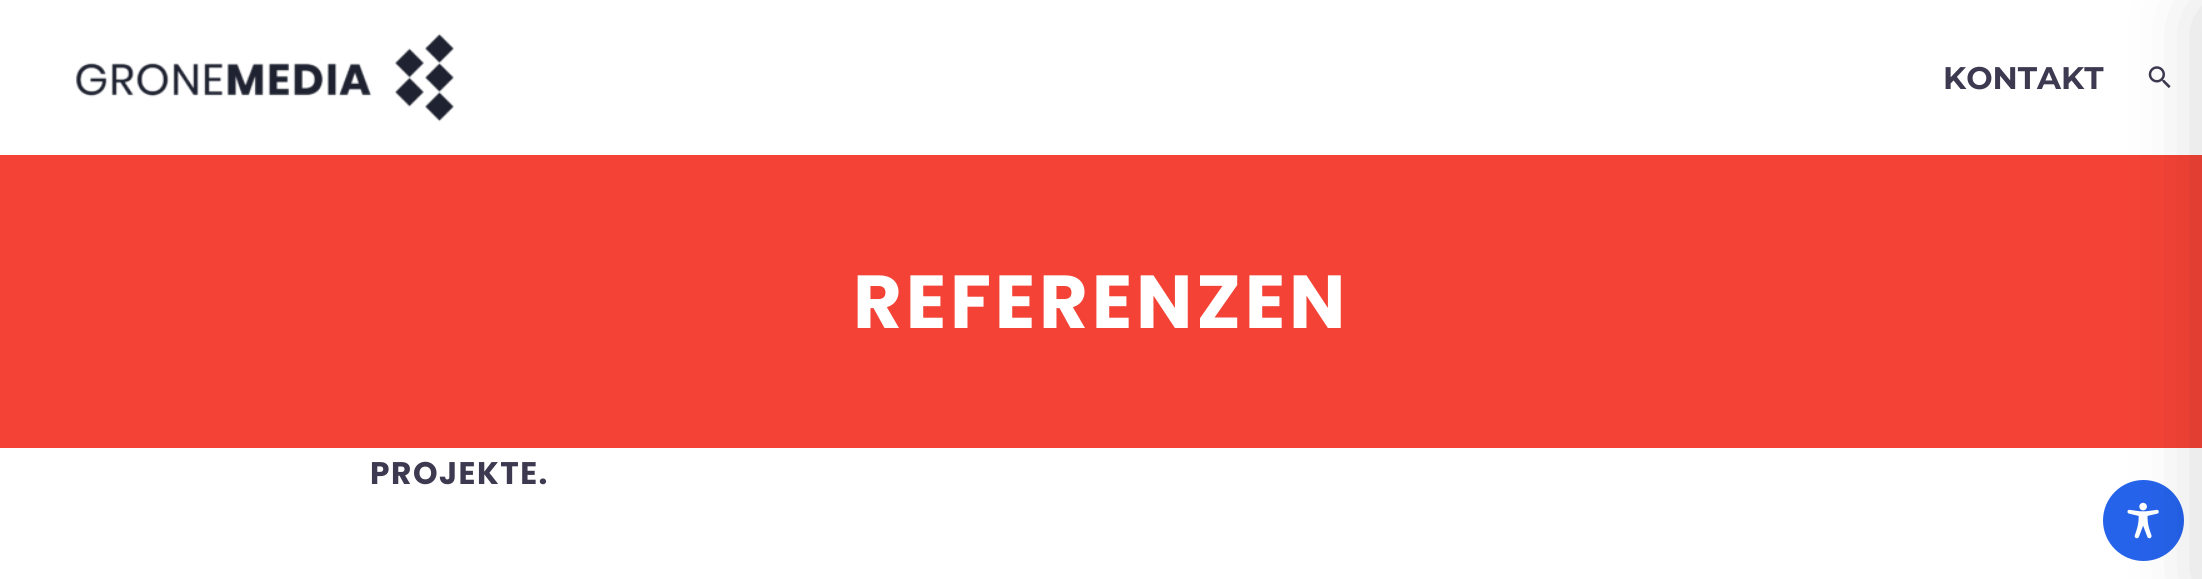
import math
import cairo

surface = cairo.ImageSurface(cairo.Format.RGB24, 2202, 579)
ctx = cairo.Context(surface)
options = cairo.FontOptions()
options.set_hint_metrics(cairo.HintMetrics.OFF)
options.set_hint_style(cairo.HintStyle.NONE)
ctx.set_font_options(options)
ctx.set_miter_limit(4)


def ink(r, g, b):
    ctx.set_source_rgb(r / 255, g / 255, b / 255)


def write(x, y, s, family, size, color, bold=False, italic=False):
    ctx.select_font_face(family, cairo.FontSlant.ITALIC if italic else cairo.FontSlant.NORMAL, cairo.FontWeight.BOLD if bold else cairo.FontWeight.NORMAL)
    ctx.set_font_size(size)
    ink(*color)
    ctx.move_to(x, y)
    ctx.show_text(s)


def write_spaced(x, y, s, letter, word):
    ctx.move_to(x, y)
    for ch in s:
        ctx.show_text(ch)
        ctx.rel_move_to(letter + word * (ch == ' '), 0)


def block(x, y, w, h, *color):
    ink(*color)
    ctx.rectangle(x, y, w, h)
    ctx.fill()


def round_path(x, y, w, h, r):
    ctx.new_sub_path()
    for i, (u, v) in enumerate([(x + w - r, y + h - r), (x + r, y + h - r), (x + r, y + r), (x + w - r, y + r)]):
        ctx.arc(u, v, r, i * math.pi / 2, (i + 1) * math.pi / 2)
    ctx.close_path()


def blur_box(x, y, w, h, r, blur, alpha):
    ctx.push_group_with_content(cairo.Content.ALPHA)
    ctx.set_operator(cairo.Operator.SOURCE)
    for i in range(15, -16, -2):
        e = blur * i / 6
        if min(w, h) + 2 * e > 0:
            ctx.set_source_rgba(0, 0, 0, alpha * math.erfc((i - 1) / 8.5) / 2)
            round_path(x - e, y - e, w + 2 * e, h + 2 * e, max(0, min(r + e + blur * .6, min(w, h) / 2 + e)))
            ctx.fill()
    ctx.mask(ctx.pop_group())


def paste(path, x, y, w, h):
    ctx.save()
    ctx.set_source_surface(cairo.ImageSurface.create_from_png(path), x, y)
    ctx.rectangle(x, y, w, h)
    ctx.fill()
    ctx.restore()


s1 = dict(family="Montserrat", size=31.25, color=(60, 57, 80), bold=True)

ink(255, 255, 255)
ctx.paint()
paste("pic1.png", 75, 33, 379, 89)
write(1943, 89, "KONTAKT", **s1)
paste("pic2.png", 2148, 66, 23, 22)
block(0, 155, 2202, 293, 244, 67, 54)
ctx.select_font_face("Poppins", cairo.FontSlant.NORMAL, cairo.FontWeight.BOLD)
ctx.set_font_size(75)
ink(255, 255, 255)
write_spaced(853, 328, "REFERENZEN", 3.75, 0)
ctx.set_font_size(31.25)
ink(60, 57, 80)
write_spaced(370, 484, "PROJEKTE.", 1.5, 0)
ink(37, 99, 235)
ctx.new_path()
ctx.arc(2143.5, 520.5, 40.5, 0, 2 * math.pi)
ctx.fill()
paste("pic3.png", 2127, 502, 32, 37)
ink(0, 0, 0)
blur_box(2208, 13, 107, 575, 0, 37.5, 0.2)
surface.write_to_png("screenshot.png")
